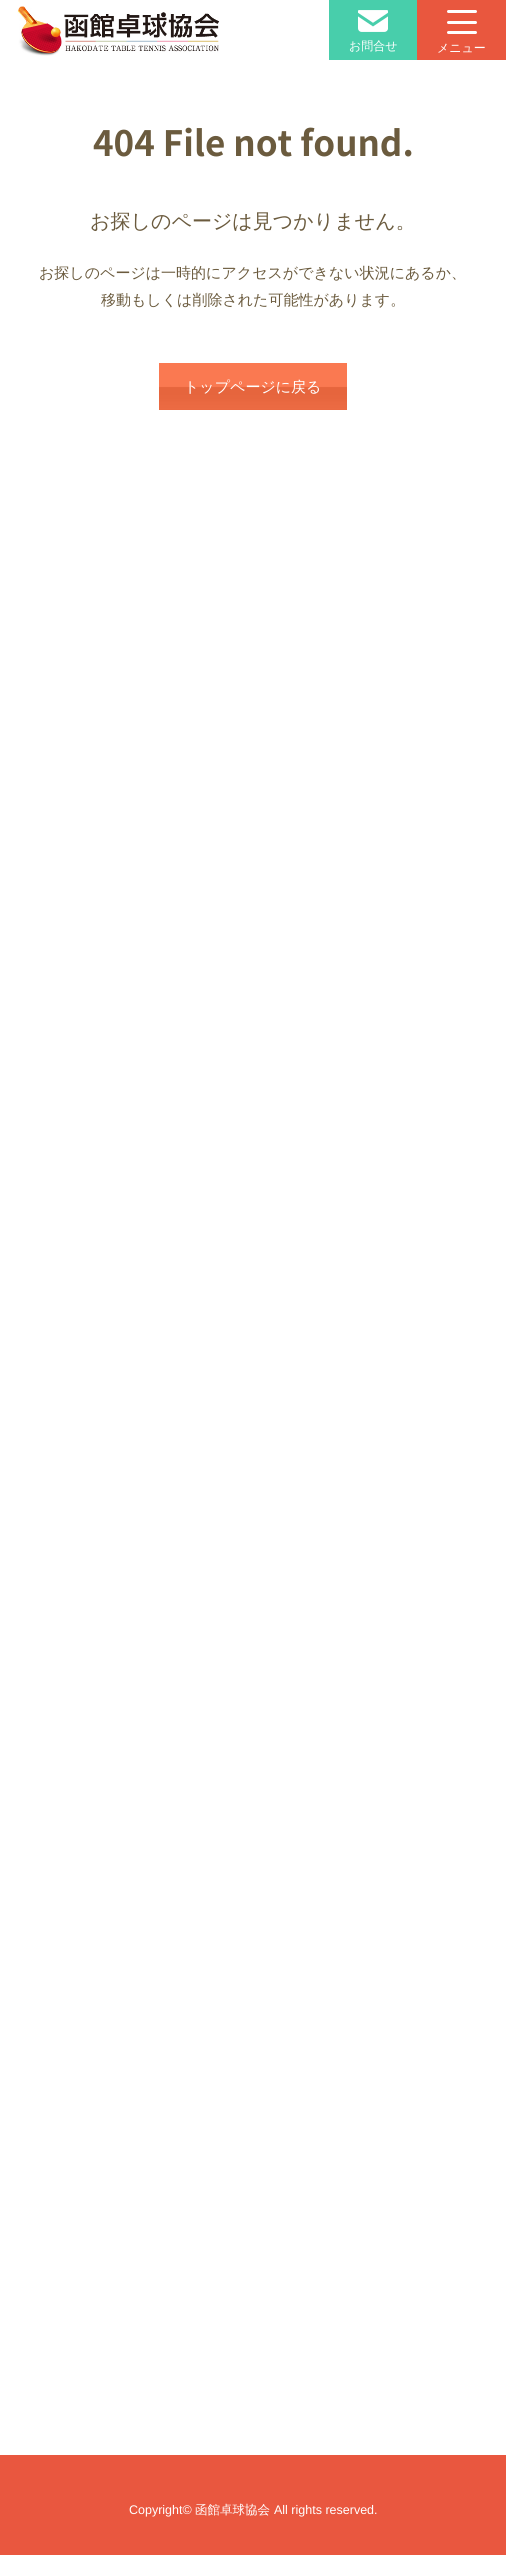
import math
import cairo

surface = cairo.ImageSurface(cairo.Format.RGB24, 506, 2556)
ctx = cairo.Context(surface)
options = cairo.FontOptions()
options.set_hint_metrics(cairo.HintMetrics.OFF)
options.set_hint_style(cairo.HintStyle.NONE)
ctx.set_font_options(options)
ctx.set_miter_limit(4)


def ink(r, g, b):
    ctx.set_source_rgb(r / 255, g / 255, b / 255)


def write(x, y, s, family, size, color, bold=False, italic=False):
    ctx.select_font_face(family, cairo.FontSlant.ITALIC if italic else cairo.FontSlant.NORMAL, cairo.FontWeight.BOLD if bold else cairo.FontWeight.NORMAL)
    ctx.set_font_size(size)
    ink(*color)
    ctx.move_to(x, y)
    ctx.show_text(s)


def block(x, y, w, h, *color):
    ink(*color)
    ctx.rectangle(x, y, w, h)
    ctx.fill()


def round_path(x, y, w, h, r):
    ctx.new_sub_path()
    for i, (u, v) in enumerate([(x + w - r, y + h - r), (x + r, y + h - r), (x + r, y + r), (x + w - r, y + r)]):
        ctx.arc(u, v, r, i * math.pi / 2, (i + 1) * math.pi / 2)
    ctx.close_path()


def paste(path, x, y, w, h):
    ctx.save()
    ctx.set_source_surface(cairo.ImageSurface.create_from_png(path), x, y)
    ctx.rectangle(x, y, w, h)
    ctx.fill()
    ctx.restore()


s1 = dict(family="WenQuanYi Zen Hei Medium", size=12, color=(255, 255, 255))
s2 = dict(family="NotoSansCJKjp", size=35, color=(107, 91, 62), bold=True)
s3 = dict(family="WenQuanYi Zen Hei Medium", size=20, color=(107, 91, 62))
s4 = dict(family="WenQuanYi Zen Hei Medium", size=15, color=(107, 91, 62))
s5 = dict(family="WenQuanYi Zen Hei Medium", size=15, color=(255, 255, 255))
s6 = dict(family="Liberation Sans", size=12.5, color=(255, 255, 255))
s7 = dict(family="WenQuanYi Zen Hei Medium", size=12.5, color=(255, 255, 255))

ink(255, 255, 255)
ctx.paint()
paste("pic1.png", 17, 6, 203, 50)
block(329, 0, 88, 60, 72, 206, 171)
paste("pic2.png", 358, 10, 30, 22)
write(349, 50, "お問合せ", **s1)
block(417, 0, 89, 60, 233, 87, 62)
ink(255, 255, 255)
round_path(447, 10, 30, 3, 1.5)
ctx.fill()
round_path(447, 21, 30, 3, 1.5)
ctx.fill()
round_path(447, 31, 30, 3, 1.5)
ctx.fill()
write(437, 52, "メニュー", **s1)
write(93, 156, "404 File not found.", **s2)
write(90, 228, "お探しのページは見つかりません。", **s3)
write(39, 278, "お探しのページは一時的にアクセスができない状況にあるか、", **s4)
write(101, 305, "移動もしくは削除された可能性があります。", **s4)
paste("pic3.png", 159, 363, 188, 47)
write(184, 392, "トップページに戻る", **s5)
block(0, 2455, 506, 100, 233, 87, 63)
write(129, 2514, "Copyright©", **s6)
write(195, 2514, "函館卓球協会", **s7)
write(274, 2514, "All rights reserved.", **s6)
surface.write_to_png("screenshot.png")
